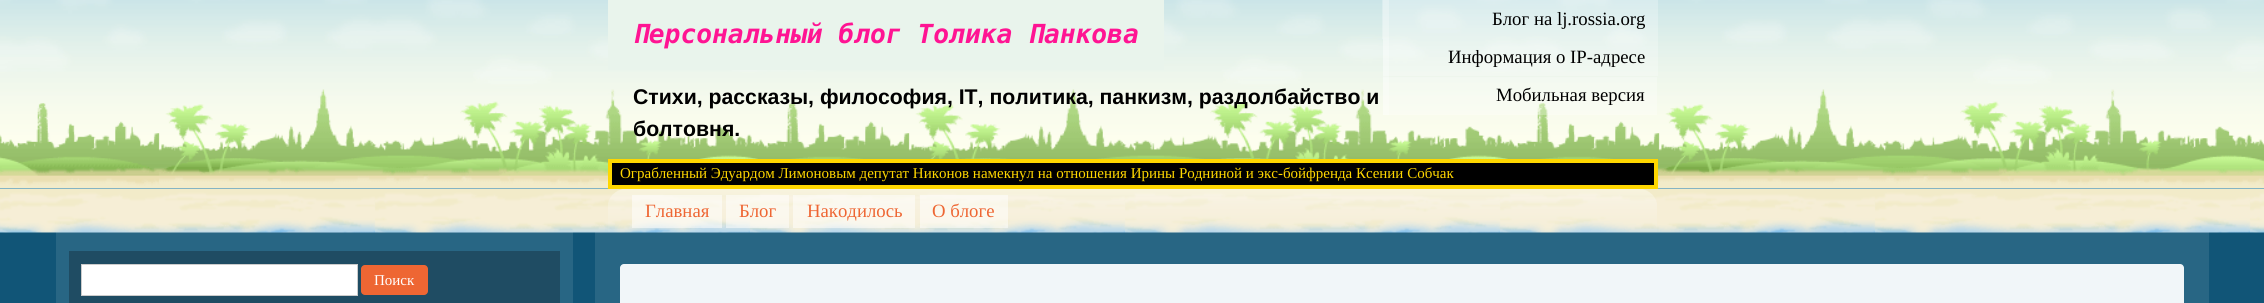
import math
import cairo

surface = cairo.ImageSurface(cairo.Format.RGB24, 2264, 303)
ctx = cairo.Context(surface)
options = cairo.FontOptions()
options.set_hint_metrics(cairo.HintMetrics.OFF)
options.set_hint_style(cairo.HintStyle.NONE)
ctx.set_font_options(options)
ctx.set_miter_limit(4)


def ink(r, g, b):
    ctx.set_source_rgb(r / 255, g / 255, b / 255)


def write(x, y, s, family, size, color, bold=False, italic=False):
    ctx.select_font_face(family, cairo.FontSlant.ITALIC if italic else cairo.FontSlant.NORMAL, cairo.FontWeight.BOLD if bold else cairo.FontWeight.NORMAL)
    ctx.set_font_size(size)
    ink(*color)
    ctx.move_to(x, y)
    ctx.show_text(s)


def block(x, y, w, h, *color):
    ink(*color)
    ctx.rectangle(x, y, w, h)
    ctx.fill()


def round_path(x, y, w, h, r):
    ctx.new_sub_path()
    for i, (u, v) in enumerate([(x + w - r, y + h - r), (x + r, y + h - r), (x + r, y + r), (x + w - r, y + r)]):
        ctx.arc(u, v, r, i * math.pi / 2, (i + 1) * math.pi / 2)
    ctx.close_path()


def paste(path, x, y, w, h):
    ctx.save()
    ctx.set_source_surface(cairo.ImageSurface.create_from_png(path), x, y)
    ctx.rectangle(x, y, w, h)
    ctx.fill()
    ctx.restore()


s1 = dict(family="DejaVu Sans Mono", size=26.25, color=(255, 20, 147), bold=True, italic=True)
s2 = dict(family="Liberation Sans", size=21.25, color=(0, 0, 0), bold=True)
s3 = dict(family="Liberation Serif", size=15, color=(255, 215, 0))
s4 = dict(family="Liberation Serif", size=18.75, color=(0, 0, 0))
s5 = dict(family="Liberation Serif", size=18.75, color=(238, 102, 51))
s6 = dict(family="Liberation Serif", size=15, color=(255, 255, 255))

ink(17, 85, 119)
ctx.paint()
paste("pic2.png", 0, 188, 2264, 45)
paste("pic1.png", 0, 0, 2264, 189)
block(608, 0, 556, 70, 233, 244, 236)
write(633, 43, "Персональный блог Толика Панкова", **s1)
write(633, 104, "Стихи, рассказы, философия, IT, политика, панкизм, раздолбайство и", **s2)
write(633, 136, "болтовня.", **s2)
ctx.rectangle(610, 161, 1046, 26)
ctx.fill_preserve()
ink(255, 215, 0)
ctx.set_line_width(4)
ctx.stroke()
write(620, 178, "Ограбленный Эдуардом Лимоновым депутат Никонов намекнул на отношения Ирины Родниной и экс-бойфренда Ксении Собчак", **s3)
ctx.set_source_rgba(1, 1, 1, 0.25)
ctx.rectangle(1382, 0, 276, 39)
ctx.fill()
ctx.rectangle(1383, 0, 6, 39)
ctx.fill()
write(1492, 25, "Блог на lj.rossia.org", **s4)
ctx.set_source_rgba(1, 1, 1, 0.25)
ctx.rectangle(1383, 39, 275, 37)
ctx.fill()
ctx.rectangle(1383, 39, 6, 37)
ctx.fill()
write(1448, 63, "Информация о IP-адресе", **s4)
ctx.set_source_rgba(1, 1, 1, 0.25)
ctx.rectangle(1383, 77, 274, 38)
ctx.fill()
ctx.rectangle(1383, 76, 6, 39)
ctx.fill()
write(1496, 101, "Мобильная версия", **s4)
paste("pic3.png", 608, 189, 1049, 43)
ctx.set_source_rgba(1, 1, 1, 0.5)
ctx.rectangle(632, 195, 90, 33)
ctx.fill()
write(645, 217, "Главная", **s5)
ctx.set_source_rgba(1, 1, 1, 0.5)
ctx.rectangle(726, 195, 63, 33)
ctx.fill()
write(739, 217, "Блог", **s5)
ctx.set_source_rgba(1, 1, 1, 0.5)
ctx.rectangle(793, 195, 122, 33)
ctx.fill()
write(807, 217, "Накодилось", **s5)
ctx.set_source_rgba(1, 1, 1, 0.5)
ctx.rectangle(920, 195, 88, 33)
ctx.fill()
write(932, 217, "О блоге", **s5)
ctx.set_source_rgba(1, 1, 1, 0.1)
ctx.rectangle(56, 232, 517, 71)
ctx.fill()
block(69, 251, 491, 52, 31, 76, 99)
ink(255, 255, 255)
ctx.rectangle(81.5, 264.5, 276, 31)
ctx.fill_preserve()
ink(204, 204, 204)
ctx.set_line_width(1)
ctx.stroke()
ink(238, 102, 51)
round_path(361, 265, 67, 30, 4)
ctx.fill()
write(374, 285, "Поиск", **s6)
ctx.set_source_rgba(1, 1, 1, 0.1)
ctx.rectangle(595, 232, 1614, 71)
ctx.fill()
ink(241, 246, 249)
round_path(620, 264, 1564, 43, 4)
ctx.fill()
surface.write_to_png("screenshot.png")
